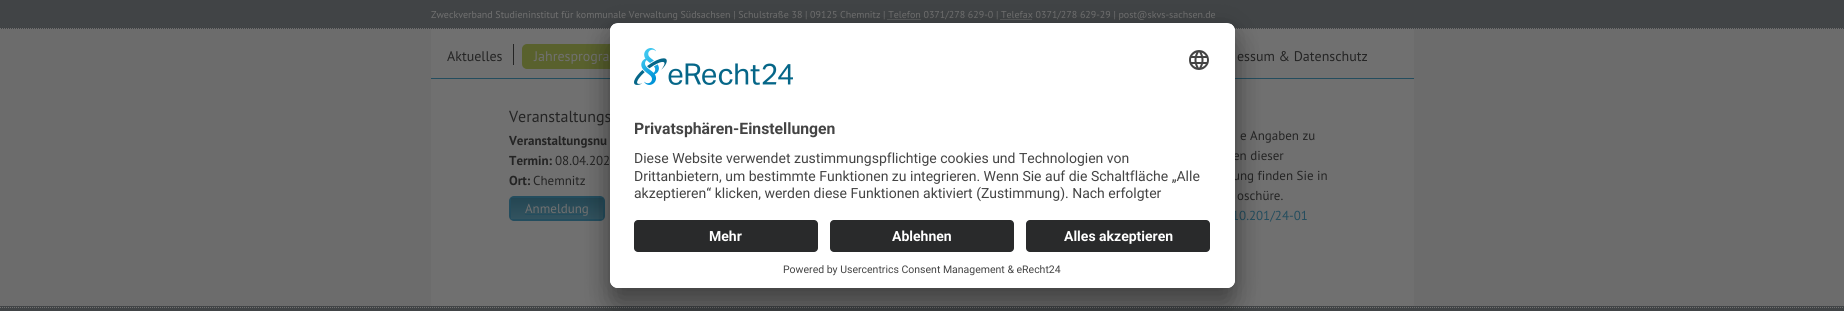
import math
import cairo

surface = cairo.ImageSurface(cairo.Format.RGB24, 1844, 311)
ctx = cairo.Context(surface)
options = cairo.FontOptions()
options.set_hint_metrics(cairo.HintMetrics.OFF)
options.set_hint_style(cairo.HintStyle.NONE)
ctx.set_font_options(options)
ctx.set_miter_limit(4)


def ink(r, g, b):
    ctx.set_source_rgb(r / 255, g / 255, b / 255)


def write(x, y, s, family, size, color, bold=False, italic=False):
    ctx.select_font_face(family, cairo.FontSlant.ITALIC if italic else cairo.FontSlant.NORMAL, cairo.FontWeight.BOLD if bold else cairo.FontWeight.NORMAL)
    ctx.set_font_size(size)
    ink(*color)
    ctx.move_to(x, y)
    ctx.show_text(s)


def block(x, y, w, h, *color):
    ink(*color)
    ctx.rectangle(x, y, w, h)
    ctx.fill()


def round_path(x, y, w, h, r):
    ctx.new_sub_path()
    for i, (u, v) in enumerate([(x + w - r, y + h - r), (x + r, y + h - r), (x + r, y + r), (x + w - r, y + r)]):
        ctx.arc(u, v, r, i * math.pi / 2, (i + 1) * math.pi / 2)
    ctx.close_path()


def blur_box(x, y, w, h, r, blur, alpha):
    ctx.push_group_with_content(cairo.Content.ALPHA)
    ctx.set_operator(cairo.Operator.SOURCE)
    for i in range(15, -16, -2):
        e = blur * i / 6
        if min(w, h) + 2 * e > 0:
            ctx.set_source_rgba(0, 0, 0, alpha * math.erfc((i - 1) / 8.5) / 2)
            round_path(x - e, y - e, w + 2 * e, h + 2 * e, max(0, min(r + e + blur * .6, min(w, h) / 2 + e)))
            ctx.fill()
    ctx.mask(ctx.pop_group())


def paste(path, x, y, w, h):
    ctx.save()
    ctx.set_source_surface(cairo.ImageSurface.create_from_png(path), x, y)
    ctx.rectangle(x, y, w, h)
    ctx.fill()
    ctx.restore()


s1 = dict(family="PT Sans", size=10, color=(112, 112, 112))
s2 = dict(family="PT Sans", size=14, color=(36, 36, 36))
s3 = dict(family="PT Sans", size=14, color=(112, 112, 112))
s4 = dict(family="PT Sans", size=16, color=(36, 36, 36))
s5 = dict(family="PT Sans", size=13, color=(36, 36, 36), bold=True)
s6 = dict(family="PT Sans", size=13, color=(36, 36, 36))
s7 = dict(family="PT Sans", size=13, color=(112, 112, 112))
s8 = dict(family="PT Sans", size=13, color=(36, 77, 94))
s9 = dict(family="Roboto", size=15.75, color=(68, 68, 68), bold=True)
s10 = dict(family="Roboto", size=14, color=(68, 68, 68))
s11 = dict(family="Roboto", size=14, color=(255, 255, 255), bold=True)
s12 = dict(family="Roboto", size=10.5, color=(68, 68, 68))

ink(108, 108, 108)
ctx.paint()
block(0, 0, 1844, 29, 65, 68, 70)
paste("pic1.png", 0, 28, 1843, 1)
write(431, 18, "Zweckverband Studieninstitut für kommunale Verwaltung Südsachsen | Schulstraße 38 | 09125 Chemnitz | Telefon 0371/278 629-0 | Telefax 0371/278 629-29 | post@skvs-sachsen.de", **s1)
ctx.new_path()
ctx.move_to(887.5, 19.5)
ctx.line_to(920.5, 19.5)
ctx.set_line_width(1)
ctx.set_dash([1, 1])
ctx.stroke()
ctx.new_path()
ctx.move_to(1000.5, 19.5)
ctx.line_to(1032.5, 19.5)
ctx.stroke()
block(431, 79, 983, 227, 112, 112, 112)
block(431, 29, 983, 49, 112, 112, 112)
block(431, 78, 983, 1, 36, 77, 94)
block(513, 44, 1, 21, 36, 36, 36)
write(447, 61, "Aktuelles", **s2)
round_path(523, 45, 120, 23, 4)
ink(89, 97, 45)
ctx.set_line_width(2)
ctx.set_dash([])
ctx.stroke()
block(524, 46, 86, 21, 89, 97, 45)
write(534, 61, "Jahresprogra", **s3)
write(1237, 61, "essum & Datenschutz", **s2)
write(509, 122, "Veranstaltungs", **s4)
write(509, 145, "Veranstaltungsnu", **s5)
write(509, 165, "Termin:", **s5)
write(555, 165, "08.04.202", **s6)
write(509, 185, "Ort:", **s5)
write(533, 185, "Chemnitz", **s6)
round_path(510, 197, 94, 23, 4)
ink(36, 77, 94)
ctx.stroke()
gradient = cairo.LinearGradient(557, 198, 557, 219)
gradient.add_color_stop_rgba(0, 0.141, 0.275, 0.325, 1)
gradient.add_color_stop_rgba(1, 0.196, 0.325, 0.373, 1)
ctx.set_source(gradient)
ctx.rectangle(511, 198, 92, 21)
ctx.fill()
block(525, 214, 63, 1, 36, 77, 94)
write(525, 213, "Anmeldung", **s7)
write(1240, 140, "e Angaben zu", **s6)
write(1233, 160, "en dieser", **s6)
write(1233, 180, "ung finden Sie in", **s6)
write(1237, 200, "oschüre.", **s6)
write(1232, 220, "10.201/24-01", **s8)
block(0, 306, 1844, 5, 65, 68, 70)
paste("pic1.png", 0, 307, 1843, 1)
ink(0, 0, 0)
blur_box(610, 43, 625, 265, 8, 14, 0.3)
blur_box(610, 28, 625, 265, 8, 13, 0.22)
ink(255, 255, 255)
round_path(610, 23, 625, 265, 8)
ctx.fill()
ctx.save()
round_path(610, 23, 625, 265, 8)
ctx.clip()
ctx.new_path()
ctx.move_to(618, 23)
ctx.line_to(1227, 23)
ctx.curve_to(1231.5, 23, 1235, 26.5, 1235, 31)
ctx.line_to(1235, 212)
ctx.line_to(610, 212)
ctx.line_to(610, 31)
ctx.curve_to(610, 26.5, 613.5, 23, 618, 23)
ctx.close_path()
ctx.clip()
block(610, 24, 625, 188, 255, 255, 255)
ctx.restore()
paste("pic2.png", 634, 48, 159, 37)
paste("pic3.png", 1189, 50, 20, 20)
write(634, 134, "Privatsphären-Einstellungen", **s9)
write(634, 163, "Diese Website verwendet zustimmungspflichtige cookies und Technologien von", **s10)
write(634, 181, "Drittanbietern, um bestimmte Funktionen zu integrieren. Wenn Sie auf die Schaltfläche „Alle", **s10)
write(634, 198, "akzeptieren“ klicken, werden diese Funktionen aktiviert (Zustimmung). Nach erfolgter", **s10)
ink(255, 255, 255)
ctx.new_path()
ctx.move_to(610, 212)
ctx.line_to(1235, 212)
ctx.line_to(1235, 280)
ctx.curve_to(1235, 284.5, 1231.5, 288, 1227, 288)
ctx.line_to(618, 288)
ctx.curve_to(613.5, 288, 610, 284.5, 610, 280)
ctx.close_path()
ctx.fill()
ink(41, 42, 43)
round_path(634, 220, 184, 32, 4)
ctx.fill()
write(709, 241, "Mehr", **s11)
ink(41, 42, 43)
round_path(830, 220, 184, 32, 4)
ctx.fill()
write(892, 241, "Ablehnen", **s11)
ink(41, 42, 43)
round_path(1026, 220, 184, 32, 4)
ctx.fill()
write(1064, 241, "Alles akzeptieren", **s11)
write(783, 273, "Powered by Usercentrics Consent Management & eRecht24", **s12)
surface.write_to_png("screenshot.png")
